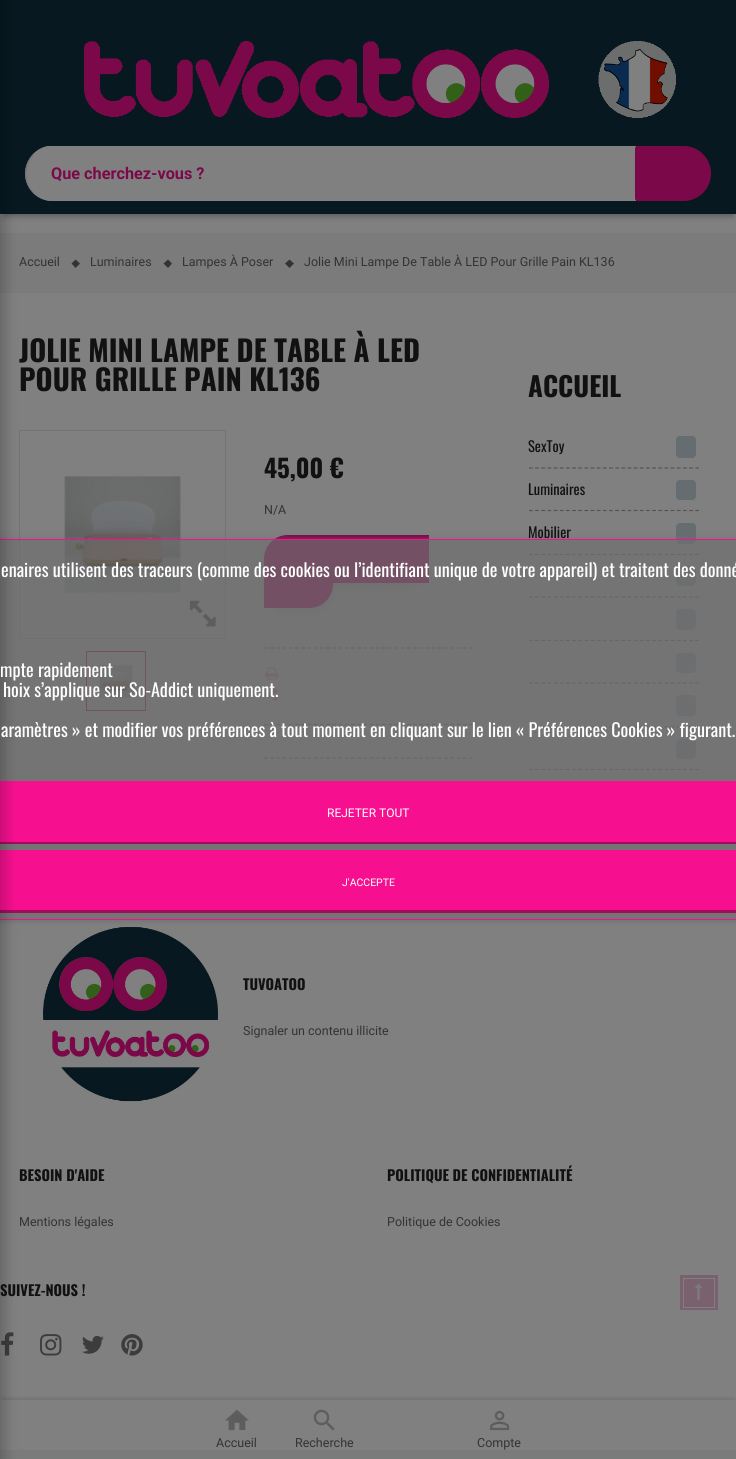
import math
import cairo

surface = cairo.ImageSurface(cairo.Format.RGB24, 736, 1459)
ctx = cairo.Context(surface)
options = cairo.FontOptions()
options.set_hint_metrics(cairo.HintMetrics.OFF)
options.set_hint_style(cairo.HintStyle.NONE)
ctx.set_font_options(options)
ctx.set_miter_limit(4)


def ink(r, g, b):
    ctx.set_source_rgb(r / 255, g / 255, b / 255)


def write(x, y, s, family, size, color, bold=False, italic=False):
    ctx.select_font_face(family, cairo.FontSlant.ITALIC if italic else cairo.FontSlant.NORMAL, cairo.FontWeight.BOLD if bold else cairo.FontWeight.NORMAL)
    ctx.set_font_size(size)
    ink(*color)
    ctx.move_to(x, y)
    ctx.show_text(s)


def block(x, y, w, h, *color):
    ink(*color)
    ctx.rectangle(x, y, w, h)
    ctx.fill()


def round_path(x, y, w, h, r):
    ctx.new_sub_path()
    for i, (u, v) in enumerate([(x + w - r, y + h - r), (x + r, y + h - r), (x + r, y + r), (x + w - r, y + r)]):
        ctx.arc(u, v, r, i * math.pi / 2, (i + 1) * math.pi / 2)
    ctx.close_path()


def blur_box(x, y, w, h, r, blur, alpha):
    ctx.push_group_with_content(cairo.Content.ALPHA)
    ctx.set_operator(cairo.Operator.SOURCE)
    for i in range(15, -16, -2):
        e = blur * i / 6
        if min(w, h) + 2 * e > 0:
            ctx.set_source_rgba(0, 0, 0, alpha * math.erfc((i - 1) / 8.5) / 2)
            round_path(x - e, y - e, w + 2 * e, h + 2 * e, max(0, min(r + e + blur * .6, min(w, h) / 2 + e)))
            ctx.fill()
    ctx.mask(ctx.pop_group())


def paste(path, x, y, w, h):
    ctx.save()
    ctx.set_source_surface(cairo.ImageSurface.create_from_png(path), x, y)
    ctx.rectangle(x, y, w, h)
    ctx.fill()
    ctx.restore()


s1 = dict(family="Roboto", size=16.25, color=(123, 8, 72), bold=True)
s2 = dict(family="Roboto", size=12.5, color=(51, 51, 51))
s3 = dict(family="Oswald", size=29.1, color=(17, 17, 17), bold=True)
s4 = dict(family="Oswald", size=25, color=(17, 17, 17), bold=True)
s5 = dict(family="Oswald", size=27, color=(17, 17, 17), bold=True)
s6 = dict(family="Oswald", size=14.5, color=(17, 17, 17))
s7 = dict(family="Oswald", size=18.2, color=(255, 255, 255))
s8 = dict(family="Roboto", size=12, color=(255, 255, 255))
s9 = dict(family="Roboto", size=10.5, color=(255, 255, 255))
s10 = dict(family="Oswald", size=14.5, color=(17, 17, 17), bold=True)

ink(128, 128, 128)
ctx.paint()
ink(0, 0, 0)
blur_box(4, 10, 729, 206, 0, 3, 0.3)
block(0, 0, 736, 214, 7, 24, 32)
block(0, 233, 736, 60, 123, 123, 123)
ctx.rectangle(19.5, 430.5, 206, 208)
ink(115, 115, 115)
ctx.set_line_width(1)
ctx.stroke()
paste("pic2.png", 64, 476, 117, 117)
paste("pic3.png", 189, 600, 27, 27)
ctx.rectangle(86.5, 651.5, 59, 59)
ink(123, 8, 72)
ctx.stroke()
paste("pic4.png", 87, 652, 59, 59)
ink(0, 0, 0)
blur_box(264, 540, 165, 48, 24, 4, 0.1)
ink(123, 8, 72)
ctx.new_path()
ctx.move_to(288, 535)
ctx.line_to(429, 535)
ctx.line_to(429, 583)
ctx.line_to(288, 583)
ctx.curve_to(274.5, 583, 264, 572.5, 264, 559)
ctx.curve_to(264, 545.5, 274.5, 535, 288, 535)
ctx.close_path()
ctx.fill()
ink(0, 0, 0)
blur_box(264, 565, 69, 48, 24, 4, 0.1)
ink(123, 8, 72)
ctx.new_path()
ctx.move_to(264, 560)
ctx.line_to(309, 560)
ctx.curve_to(322.5, 560, 333, 570.5, 333, 584)
ctx.curve_to(333, 597.5, 322.5, 608, 309, 608)
ctx.line_to(264, 608)
ctx.close_path()
ctx.fill()
ctx.new_path()
ctx.move_to(264, 648)
ctx.line_to(472.5, 648)
ink(84, 84, 84)
ctx.set_line_width(1.2)
ctx.set_dash([3.75, 2.46])
ctx.stroke()
ctx.new_path()
ctx.move_to(264, 724.5)
ctx.line_to(472.5, 724.5)
ctx.stroke()
paste("pic5.png", 265, 667, 14, 13)
paste("pic6.png", 265, 688, 13, 13)
ctx.new_path()
ctx.move_to(264, 758)
ctx.line_to(472.5, 758)
ctx.stroke()
ctx.new_path()
ctx.move_to(529, 554.5)
ctx.line_to(699, 554.5)
ctx.set_dash([3.75, 2.41])
ctx.stroke()
ink(101, 109, 113)
round_path(676, 523, 20, 21, 4)
ctx.fill()
ctx.new_path()
ctx.move_to(529, 597)
ctx.line_to(699, 597)
ink(84, 84, 84)
ctx.stroke()
ink(101, 109, 113)
round_path(676, 566, 20, 20, 4)
ctx.fill()
ctx.new_path()
ctx.move_to(529, 640.5)
ctx.line_to(699, 640.5)
ink(84, 84, 84)
ctx.stroke()
ink(101, 109, 113)
round_path(676, 609, 20, 21, 4)
ctx.fill()
ctx.new_path()
ctx.move_to(529, 683)
ctx.line_to(699, 683)
ink(84, 84, 84)
ctx.stroke()
ink(101, 109, 113)
round_path(676, 653, 20, 20, 4)
ctx.fill()
ctx.new_path()
ctx.move_to(529, 727)
ctx.line_to(699, 727)
ink(84, 84, 84)
ctx.stroke()
ink(101, 109, 113)
round_path(676, 695, 20, 21, 4)
ctx.fill()
ctx.new_path()
ctx.move_to(529, 769.5)
ctx.line_to(699, 769.5)
ink(84, 84, 84)
ctx.stroke()
ink(101, 109, 113)
round_path(676, 739, 20, 20, 4)
ctx.fill()
paste("pic7.png", 43, 927, 175, 175)
ctx.save()
ctx.set_fill_rule(cairo.FillRule.EVEN_ODD)
ctx.new_path()
ctx.move_to(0, 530)
ctx.line_to(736, 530)
ctx.line_to(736, 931)
ctx.line_to(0, 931)
ctx.close_path()
ctx.move_to(-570, 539)
ctx.line_to(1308, 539)
ctx.line_to(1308, 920)
ctx.line_to(-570, 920)
ctx.close_path()
ctx.clip()
ink(112, 112, 112)
blur_box(-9, 540, 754, 381, 0, 3, 1)
ctx.restore()
ctx.set_source_rgba(0.439, 0.439, 0.439, 0.7)
ctx.rectangle(-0.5, 539.5, 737, 380)
ctx.fill_preserve()
ink(246, 16, 143)
ctx.set_line_width(1)
ctx.set_dash([])
ctx.stroke()
block(0, 781, 736, 61, 246, 16, 143)
ink(164, 11, 95)
ctx.new_path()
ctx.move_to(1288, 844)
ctx.line_to(-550, 844)
ctx.line_to(-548, 842)
ctx.line_to(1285, 842)
ctx.close_path()
ctx.fill()
block(0, 850, 736, 60, 246, 16, 143)
ink(164, 11, 95)
ctx.new_path()
ctx.move_to(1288, 913)
ctx.line_to(-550, 913)
ctx.line_to(-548, 910)
ctx.line_to(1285, 910)
ctx.close_path()
ctx.fill()
paste("pic8.png", 1, 1332, 13, 24)
block(0, 1450, 736, 9, 122, 123, 123)
ink(0, 0, 0)
blur_box(-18, -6, 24, 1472, 0, 6, 0.2)
paste("pic1.png", 84, 41, 592, 77)
ink(128, 128, 128)
ctx.new_path()
ctx.move_to(52.5, 146)
ctx.line_to(636, 146)
ctx.line_to(636, 201)
ctx.line_to(52.5, 201)
ctx.curve_to(37.5, 201, 25, 188.5, 25, 173.5)
ctx.curve_to(25, 158.5, 37.5, 146, 52.5, 146)
ctx.close_path()
ctx.fill()
ctx.new_path()
ctx.move_to(52, 148)
ctx.curve_to(44, 148, 38, 151, 34, 155)
ctx.line_to(33, 154)
ctx.curve_to(37, 150, 42, 147, 48, 146)
ctx.line_to(636, 146)
ctx.line_to(634, 148)
ctx.close_path()
ctx.fill()
ctx.new_path()
ctx.move_to(636, 201)
ctx.line_to(635, 200)
ctx.line_to(52, 200)
ctx.curve_to(44, 200, 38, 197, 34, 193)
ctx.line_to(33, 193)
ctx.curve_to(38, 198, 45, 201, 52, 201)
ctx.close_path()
ctx.fill()
ink(115, 115, 115)
ctx.new_path()
ctx.move_to(33, 193)
ctx.curve_to(22.5, 182.5, 22.5, 165, 33, 154)
ctx.line_to(34, 155)
ctx.curve_to(24, 165, 24, 182.5, 33.5, 192.5)
ctx.close_path()
ctx.fill()
write(51, 179, "Que cherchez-vous ?", **s1)
ctx.new_path()
ctx.move_to(637.5, 146.5)
ctx.line_to(683.5, 146.5)
ctx.curve_to(698.5, 146.5, 710.5, 158.5, 710.5, 173.5)
ctx.curve_to(710.5, 188.5, 698.5, 200.5, 683.5, 200.5)
ctx.line_to(637.5, 200.5)
ctx.curve_to(636.5, 200.5, 635.5, 199.5, 635.5, 198.5)
ctx.line_to(635.5, 148.5)
ctx.curve_to(635.5, 147.5, 636.5, 146.5, 637.5, 146.5)
ctx.close_path()
ctx.fill_preserve()
ctx.stroke()
write(19, 266, "Accueil", **s2)
ctx.new_path()
ctx.move_to(75.5, 259.5)
ctx.line_to(80, 263.5)
ctx.line_to(75.5, 268)
ctx.line_to(71.5, 263.5)
ctx.close_path()
ctx.fill()
write(90, 266, "Luminaires", **s2)
ctx.new_path()
ctx.move_to(168, 259.5)
ctx.line_to(172, 263.5)
ctx.line_to(168, 268)
ctx.line_to(163.5, 263.5)
ctx.close_path()
ctx.fill()
write(182, 266, "Lampes À Poser", **s2)
ctx.new_path()
ctx.move_to(289.5, 259.5)
ctx.line_to(294, 263.5)
ctx.line_to(289.5, 268)
ctx.line_to(285, 263.5)
ctx.close_path()
ctx.fill()
write(304, 266, "Jolie Mini Lampe De Table À LED Pour Grille Pain KL136", **s2)
write(19, 362, "JOLIE MINI LAMPE DE TABLE À LED", **s3)
write(19, 391, "POUR GRILLE PAIN KL136", **s3)
write(264, 478, "45,00 €", **s4)
write(264, 514, "N/A", **s2)
write(528, 397, "ACCUEIL", **s5)
ctx.new_path()
ctx.move_to(529, 468)
ctx.line_to(699, 468)
ink(84, 84, 84)
ctx.set_line_width(1.2)
ctx.set_dash([3.75, 2.41])
ctx.stroke()
write(528, 452, "SexToy", **s6)
ink(101, 109, 113)
round_path(676, 436, 20, 22, 4)
ctx.fill()
ctx.new_path()
ctx.move_to(529, 510.5)
ctx.line_to(699, 510.5)
ink(84, 84, 84)
ctx.stroke()
write(528, 495, "Luminaires", **s6)
ink(101, 109, 113)
round_path(676, 480, 20, 20, 4)
ctx.fill()
write(528, 538, "Mobilier", **s6)
write(1, 577, "enaires utilisent des traceurs (comme des cookies ou l’identifiant unique de votre appareil) et traitent des donné", **s7)
write(0, 677, "mpte rapidement", **s7)
write(3, 697, "hoix s’applique sur So-Addict uniquement.", **s7)
write(1, 737, "aramètres » et modifier vos préférences à tout moment en cliquant sur le lien « Préférences Cookies » figurant.", **s7)
write(327, 817, "REJETER TOUT", **s8)
write(342, 886, "J'ACCEPTE", **s9)
write(243, 990, "TUVOATOO", **s10)
write(243, 1035, "Signaler un contenu illicite", **s2)
write(19, 1181, "BESOIN D'AIDE", **s10)
write(19, 1226, "Mentions légales", **s2)
write(387, 1181, "POLITIQUE DE CONFIDENTIALITÉ", **s10)
write(387, 1226, "Politique de Cookies", **s2)
write(0, 1296, "SUIVEZ-NOUS !", **s10)
paste("pic9.png", 40, 1334, 22, 22)
paste("pic10.png", 82, 1335, 22, 19)
paste("pic11.png", 121, 1334, 22, 22)
block(680, 1275, 38, 35, 121, 98, 109)
paste("pic12.png", 695, 1284, 7, 16)
ctx.rectangle(683.5, 1278.5, 31, 29)
ink(128, 128, 128)
ctx.set_line_width(1)
ctx.set_dash([])
ctx.stroke()
ctx.save()
ctx.rectangle(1, 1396, 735, 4)
ctx.clip()
ink(0, 0, 0)
blur_box(3, 1400, 731, 55, 0, 3, 0.2)
ctx.restore()
paste("pic13.png", 225, 1409, 24, 22)
write(216, 1447, "Accueil", **s2)
paste("pic14.png", 313, 1409, 22, 22)
write(295, 1447, "Recherche", **s2)
paste("pic15.png", 490, 1410, 20, 21)
write(477, 1447, "Compte", **s2)
surface.write_to_png("screenshot.png")
